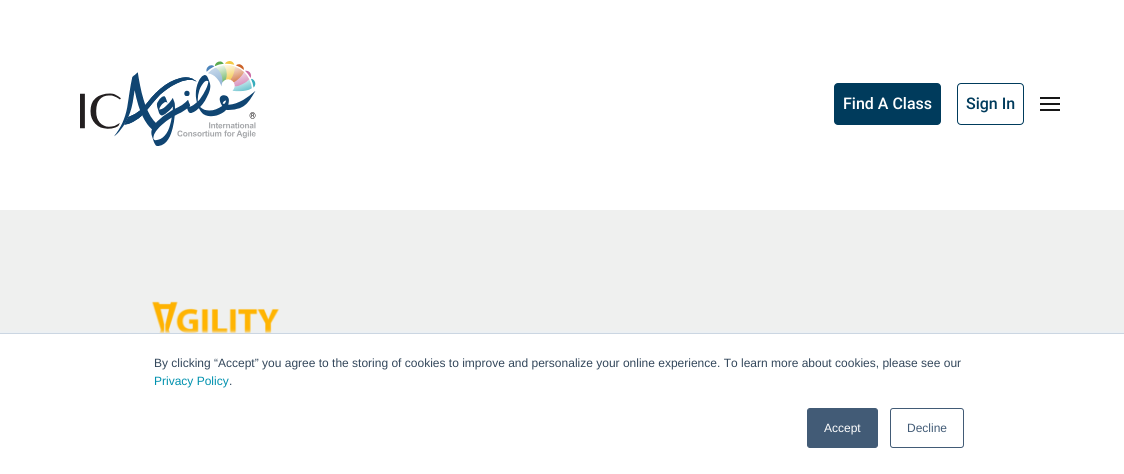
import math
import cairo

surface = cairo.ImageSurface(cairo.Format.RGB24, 1124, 474)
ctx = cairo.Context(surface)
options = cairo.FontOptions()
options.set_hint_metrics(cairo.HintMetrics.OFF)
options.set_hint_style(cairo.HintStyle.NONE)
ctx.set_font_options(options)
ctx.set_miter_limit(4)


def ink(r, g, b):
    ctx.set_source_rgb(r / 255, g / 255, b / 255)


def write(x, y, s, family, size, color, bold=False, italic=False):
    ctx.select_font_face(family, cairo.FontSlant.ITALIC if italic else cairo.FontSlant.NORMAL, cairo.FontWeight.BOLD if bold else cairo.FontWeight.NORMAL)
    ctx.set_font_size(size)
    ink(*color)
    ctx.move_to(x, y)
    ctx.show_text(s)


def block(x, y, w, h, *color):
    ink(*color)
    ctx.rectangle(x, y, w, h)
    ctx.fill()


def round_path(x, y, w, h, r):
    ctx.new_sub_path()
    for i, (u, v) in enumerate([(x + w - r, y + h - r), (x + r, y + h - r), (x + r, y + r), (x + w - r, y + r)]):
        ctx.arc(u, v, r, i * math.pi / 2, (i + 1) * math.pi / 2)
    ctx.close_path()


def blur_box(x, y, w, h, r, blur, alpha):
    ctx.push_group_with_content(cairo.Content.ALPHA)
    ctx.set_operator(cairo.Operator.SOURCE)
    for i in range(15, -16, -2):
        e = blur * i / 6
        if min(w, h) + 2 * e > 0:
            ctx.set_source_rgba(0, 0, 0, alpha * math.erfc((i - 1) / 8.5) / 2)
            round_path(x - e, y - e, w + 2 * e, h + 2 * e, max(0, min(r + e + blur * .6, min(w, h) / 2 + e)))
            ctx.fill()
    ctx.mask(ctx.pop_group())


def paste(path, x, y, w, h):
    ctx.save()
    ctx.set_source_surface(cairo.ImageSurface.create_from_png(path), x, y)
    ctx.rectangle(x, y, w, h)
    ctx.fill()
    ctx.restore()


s1 = dict(family="Roboto Medium", size=16, color=(255, 255, 255))
s2 = dict(family="Roboto Medium", size=16, color=(0, 59, 92))
s3 = dict(family="Liberation Sans", size=12, color=(51, 71, 91))
s4 = dict(family="Liberation Sans", size=12, color=(0, 145, 174))
s5 = dict(family="Liberation Sans", size=12, color=(255, 255, 255))
s6 = dict(family="Liberation Sans", size=12, color=(66, 91, 118))

ink(255, 255, 255)
ctx.paint()
paste("pic1.png", 80, 61, 176, 85)
ink(0, 59, 92)
round_path(834, 83, 107, 42, 4)
ctx.fill()
write(843, 109, "Find A Class", **s1)
round_path(957.5, 83.5, 66, 41, 3.5)
ink(0, 59, 92)
ctx.set_line_width(1)
ctx.stroke()
write(966, 109, "Sign In", **s2)
paste("pic2.png", 1040, 97, 20, 14)
block(0, 210, 1124, 123, 239, 240, 239)
paste("pic3.png", 119, 301, 161, 32)
ink(234, 240, 246)
blur_box(0, 332, 1124, 141, 0, 1.5, 1)
block(0, 334, 1124, 140, 255, 255, 255)
block(0, 333, 1124, 1, 203, 214, 226)
write(154, 367, "By clicking “Accept” you agree to the storing of cookies to improve and personalize your online experience. To learn more about cookies, please see our", **s3)
write(154, 385, "Privacy Policy", **s4)
write(229, 385, ".", **s3)
ink(66, 91, 118)
round_path(807.5, 408.5, 70, 39, 2.5)
ctx.fill_preserve()
ctx.stroke()
write(824, 432, "Accept", **s5)
round_path(890.5, 408.5, 73, 39, 2.5)
ink(66, 91, 118)
ctx.stroke()
write(907, 432, "Decline", **s6)
surface.write_to_png("screenshot.png")
